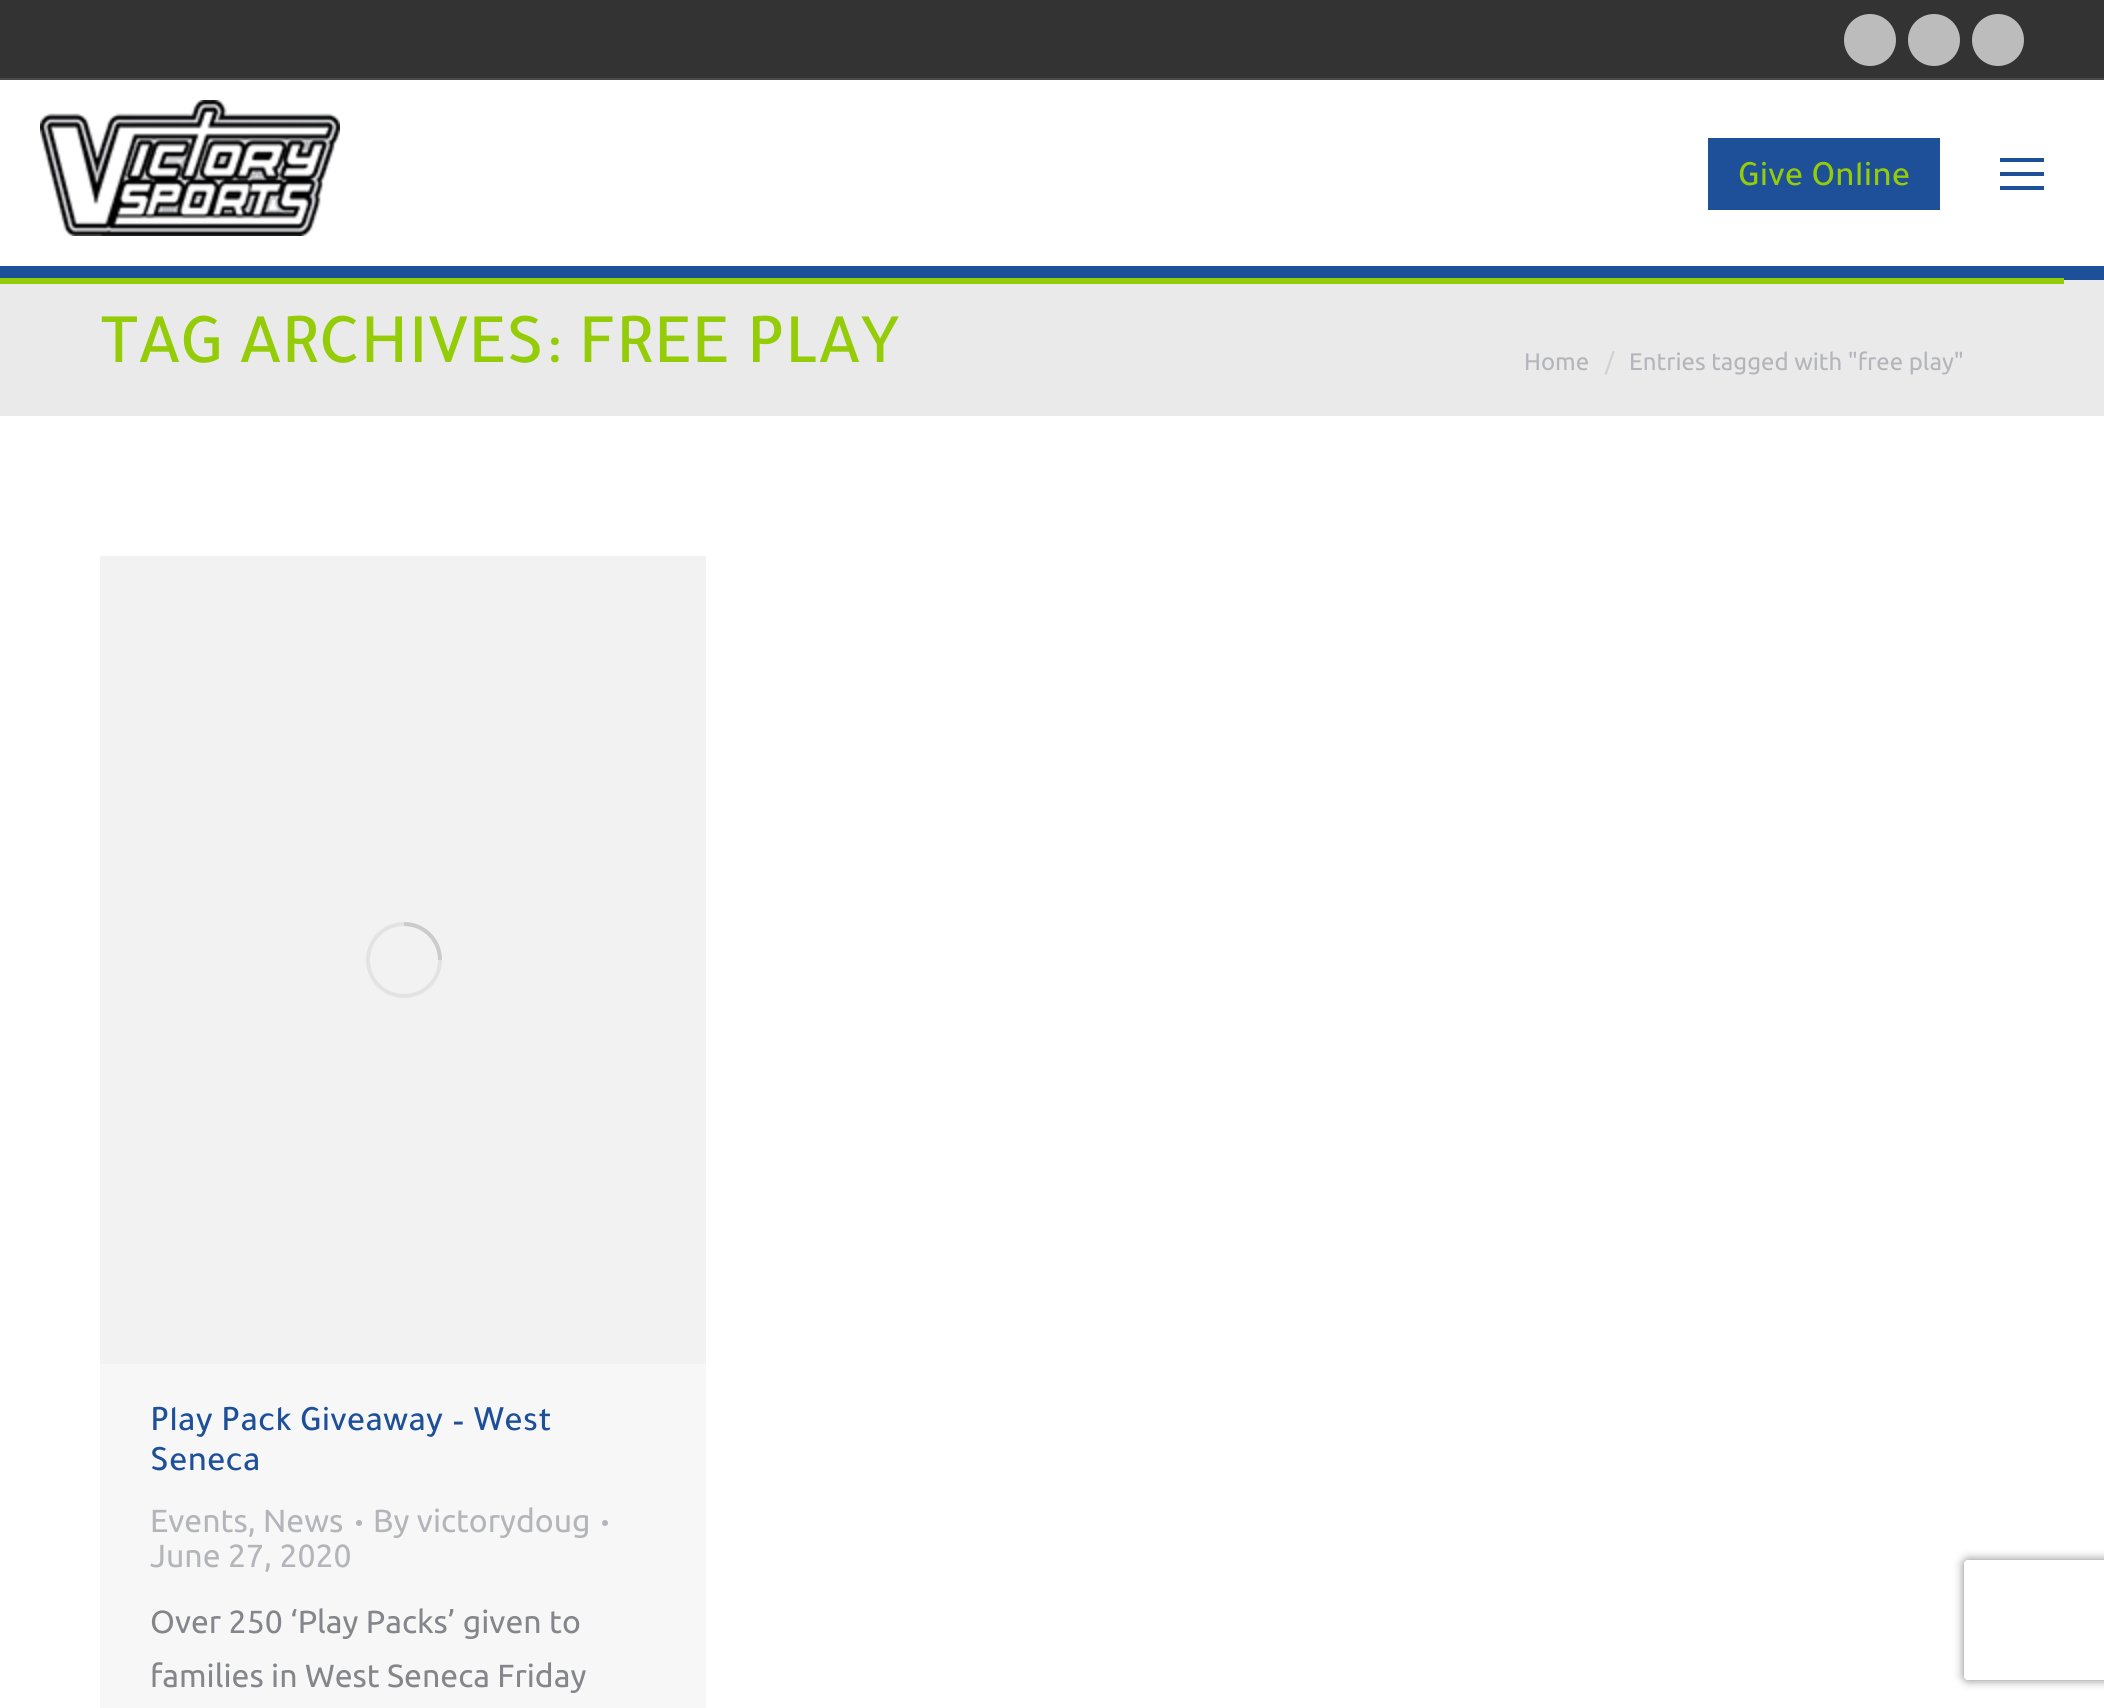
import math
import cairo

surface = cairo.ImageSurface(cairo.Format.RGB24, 2104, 1708)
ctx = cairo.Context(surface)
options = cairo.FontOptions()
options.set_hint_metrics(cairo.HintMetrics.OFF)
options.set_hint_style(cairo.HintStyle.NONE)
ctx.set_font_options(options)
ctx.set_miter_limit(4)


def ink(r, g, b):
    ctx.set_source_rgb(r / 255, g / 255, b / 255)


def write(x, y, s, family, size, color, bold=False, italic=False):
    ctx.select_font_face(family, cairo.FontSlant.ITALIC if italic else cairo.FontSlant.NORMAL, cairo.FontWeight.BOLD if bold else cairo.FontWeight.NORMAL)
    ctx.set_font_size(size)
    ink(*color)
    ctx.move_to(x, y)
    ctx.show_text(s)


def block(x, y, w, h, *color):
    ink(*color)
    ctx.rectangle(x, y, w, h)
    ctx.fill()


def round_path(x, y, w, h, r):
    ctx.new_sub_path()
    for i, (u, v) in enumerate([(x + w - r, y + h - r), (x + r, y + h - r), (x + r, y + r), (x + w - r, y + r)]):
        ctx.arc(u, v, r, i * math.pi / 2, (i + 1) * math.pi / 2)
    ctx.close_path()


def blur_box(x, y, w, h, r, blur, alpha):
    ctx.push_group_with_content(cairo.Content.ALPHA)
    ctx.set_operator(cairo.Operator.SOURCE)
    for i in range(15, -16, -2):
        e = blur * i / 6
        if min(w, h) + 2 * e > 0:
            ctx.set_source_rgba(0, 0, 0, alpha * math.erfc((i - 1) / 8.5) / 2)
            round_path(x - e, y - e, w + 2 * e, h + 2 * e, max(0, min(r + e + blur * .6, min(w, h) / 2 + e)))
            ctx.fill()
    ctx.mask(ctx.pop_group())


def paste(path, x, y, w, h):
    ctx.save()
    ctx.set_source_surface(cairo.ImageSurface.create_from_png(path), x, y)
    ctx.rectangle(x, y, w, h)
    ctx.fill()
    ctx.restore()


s1 = dict(family="Tajawal Medium", size=36, color=(148, 204, 8))
s2 = dict(family="Tajawal Medium", size=72, color=(148, 204, 8))
s3 = dict(family="Ubuntu", size=24, color=(180, 181, 187))
s4 = dict(family="Ubuntu", size=24, color=(207, 208, 211))
s5 = dict(family="Tajawal Medium", size=36, color=(30, 79, 153))
s6 = dict(family="Ubuntu", size=32, color=(180, 181, 187))
s7 = dict(family="Ubuntu", size=32, color=(133, 134, 140))

ink(255, 255, 255)
ctx.paint()
block(0, 266, 2104, 14, 30, 79, 153)
block(0, 0, 2104, 78, 51, 51, 51)
ink(188, 188, 188)
ctx.arc(1870, 40, 26, 0, 2 * math.pi)
ctx.fill()
ctx.arc(1934, 40, 26, 0, 2 * math.pi)
ctx.fill()
ctx.arc(1998, 40, 26, 0, 2 * math.pi)
ctx.fill()
block(0, 78, 2104, 2, 75, 75, 75)
paste("pic1.png", 40, 100, 300, 136)
block(1708, 138, 232, 72, 30, 79, 153)
write(1738, 185, "Give Online", **s1)
block(2000, 158, 44, 4, 30, 79, 153)
block(2000, 172, 44, 4, 30, 79, 153)
block(2000, 186, 44, 4, 30, 79, 153)
block(0, 280, 2104, 136, 234, 234, 234)
block(0, 278, 2064, 6, 148, 204, 8)
write(100, 362, "TAG ARCHIVES: FREE PLAY", **s2)
write(1524, 370, "Home", **s3)
write(1605, 370, "/", **s4)
write(1629, 370, "Entries tagged with \"free play\"", **s3)
block(100, 1364, 606, 344, 247, 247, 247)
block(100, 556, 606, 808, 242, 242, 242)
ctx.new_path()
ctx.arc(404, 960, 36, 0, 2 * math.pi)
ink(227, 227, 228)
ctx.set_line_width(4)
ctx.stroke()
ctx.new_path()
ctx.move_to(440, 960)
ctx.curve_to(440, 940, 424, 924, 404, 924)
ctx.set_source_rgba(0.522, 0.525, 0.549, 0.25)
ctx.stroke()
write(150, 1430, "Play Pack Giveaway – West", **s5)
write(150, 1470, "Seneca", **s5)
write(150, 1532, "Events, News", **s6)
ctx.new_path()
ctx.arc(359, 1523, 3, 0, 2 * math.pi)
ctx.fill()
write(373, 1532, "By victorydoug", **s6)
ctx.new_path()
ctx.arc(605, 1523, 3, 0, 2 * math.pi)
ctx.fill()
write(150, 1567, "June 27, 2020", **s6)
write(150, 1633, "Over 250 ‘Play Packs’ given to", **s7)
write(150, 1687, "families in West Seneca Friday", **s7)
ctx.save()
ctx.set_fill_rule(cairo.FillRule.EVEN_ODD)
ctx.new_path()
ctx.move_to(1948, 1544)
ctx.line_to(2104, 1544)
ctx.line_to(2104, 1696)
ctx.line_to(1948, 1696)
ctx.close_path()
ctx.move_to(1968, 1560)
ctx.line_to(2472, 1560)
ctx.curve_to(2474, 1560, 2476, 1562, 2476, 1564)
ctx.line_to(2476, 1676)
ctx.curve_to(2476, 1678, 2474, 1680, 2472, 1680)
ctx.line_to(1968, 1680)
ctx.curve_to(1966, 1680, 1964, 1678, 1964, 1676)
ctx.line_to(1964, 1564)
ctx.curve_to(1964, 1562, 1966, 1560, 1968, 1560)
ctx.close_path()
ctx.clip()
ink(128, 128, 128)
blur_box(1964, 1560, 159, 120, 4, 5, 1)
ctx.restore()
surface.write_to_png("screenshot.png")
